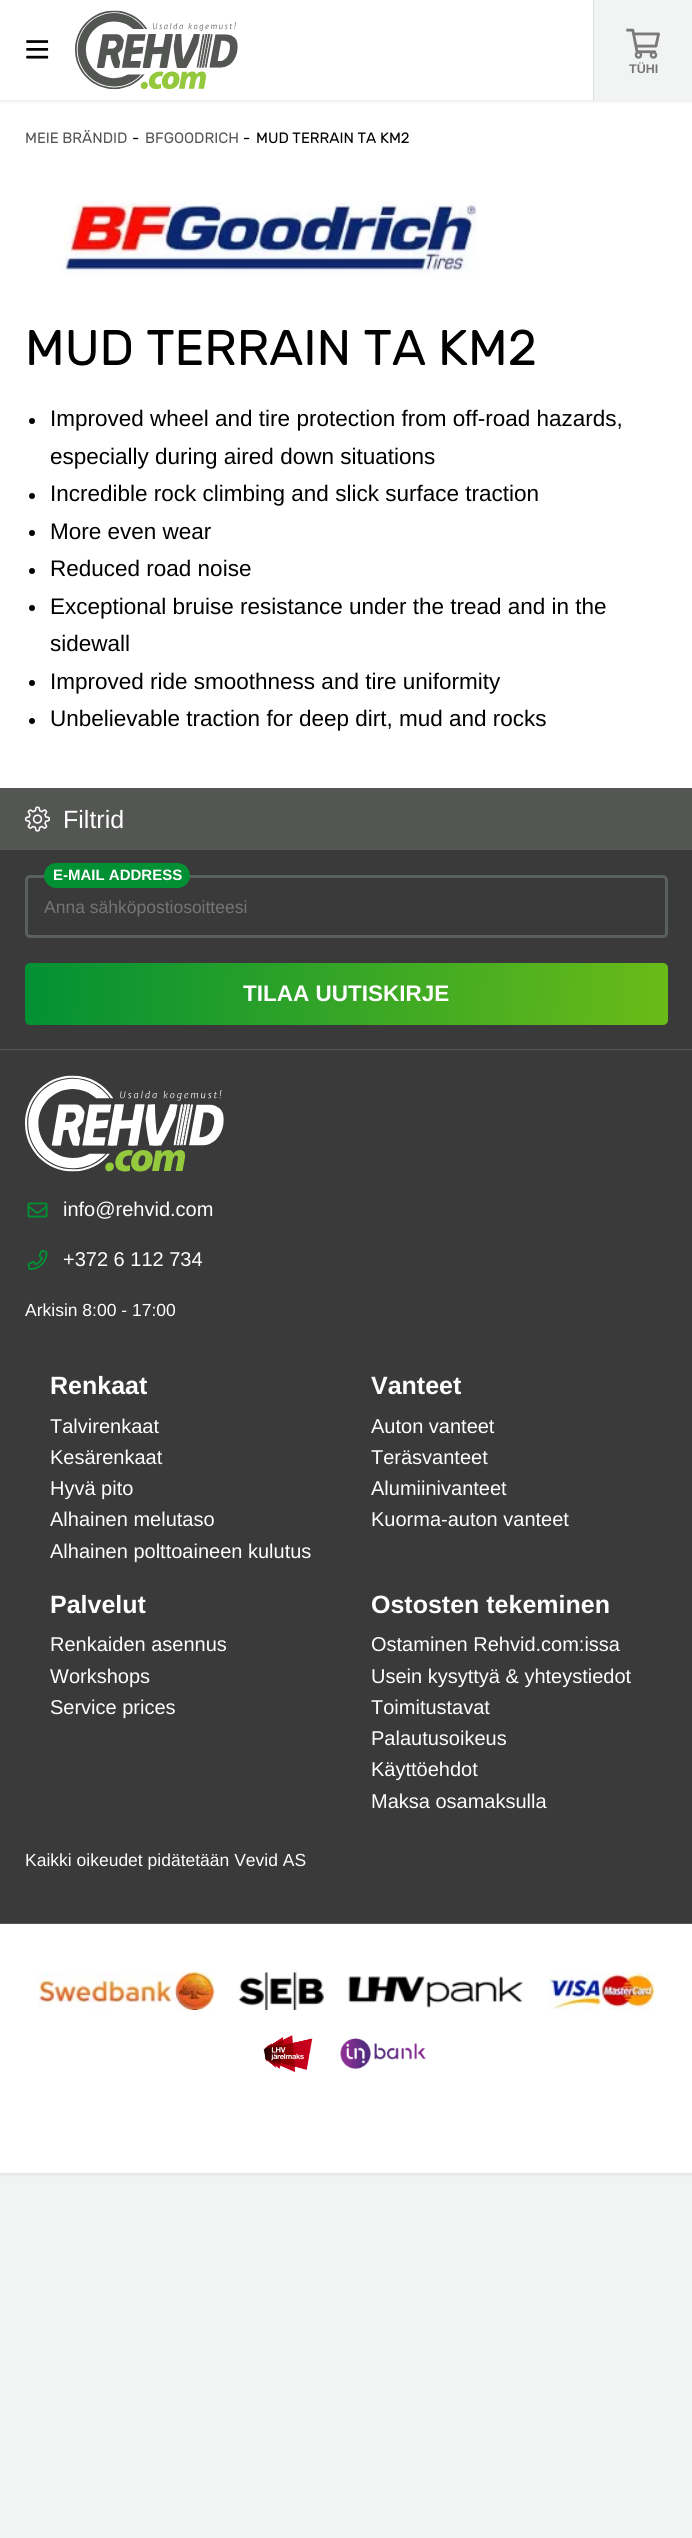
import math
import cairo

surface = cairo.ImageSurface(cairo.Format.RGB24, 692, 2538)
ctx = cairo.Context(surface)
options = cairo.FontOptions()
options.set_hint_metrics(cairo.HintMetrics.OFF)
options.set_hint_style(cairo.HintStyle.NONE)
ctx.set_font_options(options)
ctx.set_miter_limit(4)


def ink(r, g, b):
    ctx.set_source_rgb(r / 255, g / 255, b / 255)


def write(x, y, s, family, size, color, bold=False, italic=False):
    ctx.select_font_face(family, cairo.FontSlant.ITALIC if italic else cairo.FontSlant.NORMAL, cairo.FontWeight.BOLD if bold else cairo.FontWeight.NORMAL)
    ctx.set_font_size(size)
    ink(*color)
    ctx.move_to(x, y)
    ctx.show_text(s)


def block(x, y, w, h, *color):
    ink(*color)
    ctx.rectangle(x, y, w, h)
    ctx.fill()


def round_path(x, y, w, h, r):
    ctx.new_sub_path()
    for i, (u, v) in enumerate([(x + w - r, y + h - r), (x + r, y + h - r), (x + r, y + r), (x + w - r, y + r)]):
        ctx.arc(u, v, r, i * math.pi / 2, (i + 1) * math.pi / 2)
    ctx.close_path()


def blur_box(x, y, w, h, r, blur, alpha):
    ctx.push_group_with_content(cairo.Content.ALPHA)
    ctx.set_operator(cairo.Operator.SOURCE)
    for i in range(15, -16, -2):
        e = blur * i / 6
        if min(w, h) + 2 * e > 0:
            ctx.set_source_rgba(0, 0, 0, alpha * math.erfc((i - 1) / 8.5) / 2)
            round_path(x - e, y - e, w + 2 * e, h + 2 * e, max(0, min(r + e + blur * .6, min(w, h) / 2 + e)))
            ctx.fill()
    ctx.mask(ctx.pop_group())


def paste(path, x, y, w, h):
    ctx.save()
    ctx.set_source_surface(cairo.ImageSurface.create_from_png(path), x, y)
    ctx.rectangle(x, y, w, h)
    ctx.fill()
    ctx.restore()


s1 = dict(family="Liberation Sans", size=12.5, color=(117, 117, 117), bold=True)
s2 = dict(family="Rubik", size=15, color=(84, 86, 83))
s3 = dict(family="Rubik", size=15, color=(0, 0, 0))
s4 = dict(family="Rubik", size=50, color=(0, 0, 0))
s5 = dict(family="Liberation Sans", size=22.5, color=(0, 0, 0))
s6 = dict(family="Liberation Sans", size=25, color=(255, 255, 255))
s7 = dict(family="Liberation Sans", size=15, color=(255, 255, 255), bold=True)
s8 = dict(family="Liberation Sans", size=17.5, color=(117, 117, 117))
s9 = dict(family="Liberation Sans", size=22.5, color=(255, 255, 255), bold=True)
s10 = dict(family="Liberation Sans", size=20, color=(255, 255, 255))
s11 = dict(family="Liberation Sans", size=17.5, color=(255, 255, 255))
s12 = dict(family="Liberation Sans", size=25, color=(255, 255, 255), bold=True)

ink(242, 244, 243)
ctx.paint()
block(0, 100, 692, 688, 255, 255, 255)
ink(0, 0, 0)
blur_box(0, 0, 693, 100, 0, 2.5, 0.15)
block(0, 0, 593, 100, 255, 255, 255)
paste("pic1.png", 26, 40, 23, 19)
paste("pic2.png", 75, 10, 163, 80)
block(594, 0, 98, 100, 242, 244, 243)
block(593, 0, 1, 100, 213, 225, 219)
paste("pic3.png", 626, 28, 34, 31)
write(629, 73, "TÜHI", **s1)
write(25, 143, "MEIE BRÄNDID", **s2)
write(132, 143, "-", **s3)
write(145, 143, "BFGOODRICH", **s2)
write(243, 143, "-", **s3)
write(256, 143, "MUD TERRAIN TA KM2", **s3)
paste("pic4.png", 63, 201, 414, 74)
write(25, 365, "MUD TERRAIN TA KM2", **s4)
ctx.new_path()
ctx.arc(32, 421, 3, 0, 2 * math.pi)
ctx.fill()
write(50, 426, "Improved wheel and tire protection from off-road hazards,", **s5)
write(50, 464, "especially during aired down situations", **s5)
ctx.new_path()
ctx.arc(32, 496, 3, 0, 2 * math.pi)
ctx.fill()
write(50, 501, "Incredible rock climbing and slick surface traction", **s5)
ctx.new_path()
ctx.arc(32, 533, 3, 0, 2 * math.pi)
ctx.fill()
write(50, 539, "More even wear", **s5)
ctx.new_path()
ctx.arc(32, 571, 3, 0, 2 * math.pi)
ctx.fill()
write(50, 576, "Reduced road noise", **s5)
ctx.new_path()
ctx.arc(32, 608, 3, 0, 2 * math.pi)
ctx.fill()
write(50, 614, "Exceptional bruise resistance under the tread and in the", **s5)
write(50, 651, "sidewall", **s5)
ctx.new_path()
ctx.arc(32, 683, 3, 0, 2 * math.pi)
ctx.fill()
write(50, 689, "Improved ride smoothness and tire uniformity", **s5)
ctx.new_path()
ctx.arc(32, 721, 3, 0, 2 * math.pi)
ctx.fill()
write(50, 726, "Unbelievable traction for deep dirt, mud and rocks", **s5)
ink(0, 0, 0)
blur_box(0, 850, 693, 1323, 0, 2.5, 0.15)
block(0, 788, 692, 62, 84, 86, 83)
paste("pic5.png", 25, 806, 25, 26)
write(63, 828, "Filtrid", **s6)
block(0, 850, 692, 1073, 59, 58, 58)
block(0, 1049, 692, 1, 83, 89, 86)
round_path(26.5, 876.5, 640, 60, 3.5)
ink(90, 96, 93)
ctx.set_line_width(3)
ctx.stroke()
ink(1, 144, 52)
round_path(44, 863, 146, 25, 12.5)
ctx.fill()
write(53, 880, "E-MAIL ADDRESS", **s7)
write(44, 913, "Anna sähköpostiosoitteesi", **s8)
gradient = cairo.LinearGradient(24, 970, 668, 1017)
gradient.add_color_stop_rgba(0, 0.004, 0.565, 0.204, 1)
gradient.add_color_stop_rgba(1, 0.416, 0.733, 0.094, 1)
ctx.set_source(gradient)
round_path(25, 963, 643, 62, 5)
ctx.fill()
write(243, 1001, "TILAA UUTISKIRJE", **s9)
paste("pic6.png", 25, 1075, 199, 97)
paste("pic7.png", 27, 1202, 21, 16)
write(63, 1216, "info@rehvid.com", **s10)
paste("pic8.png", 27, 1250, 21, 20)
write(63, 1266, "+372 6 112 734", **s10)
write(25, 1316, "Arkisin 8:00 - 17:00", **s11)
write(50, 1394, "Renkaat", **s12)
write(50, 1433, "Talvirenkaat", **s10)
write(50, 1464, "Kesärenkaat", **s10)
write(50, 1495, "Hyvä pito", **s10)
write(50, 1526, "Alhainen melutaso", **s10)
write(50, 1558, "Alhainen polttoaineen kulutus", **s10)
write(371, 1394, "Vanteet", **s12)
write(371, 1433, "Auton vanteet", **s10)
write(371, 1464, "Teräsvanteet", **s10)
write(371, 1495, "Alumiinivanteet", **s10)
write(371, 1526, "Kuorma-auton vanteet", **s10)
write(50, 1613, "Palvelut", **s12)
write(50, 1651, "Renkaiden asennus", **s10)
write(50, 1683, "Workshops", **s10)
write(50, 1714, "Service prices", **s10)
write(371, 1613, "Ostosten tekeminen", **s12)
write(371, 1651, "Ostaminen Rehvid.com:issa", **s10)
write(371, 1683, "Usein kysyttyä & yhteystiedot", **s10)
write(371, 1714, "Toimitustavat", **s10)
write(371, 1745, "Palautusoikeus", **s10)
write(371, 1776, "Käyttöehdot", **s10)
write(371, 1808, "Maksa osamaksulla", **s10)
write(25, 1866, "Kaikki oikeudet pidätetään Vevid AS", **s11)
block(0, 1924, 692, 249, 255, 255, 255)
block(0, 1923, 692, 1, 83, 89, 86)
paste("pic9.png", 38, 1972, 176, 38)
paste("pic10.png", 238, 1972, 86, 38)
paste("pic11.png", 348, 1976, 176, 32)
paste("pic12.png", 548, 1972, 107, 38)
paste("pic13.png", 263, 2035, 50, 37)
paste("pic14.png", 340, 2038, 86, 31)
surface.write_to_png("screenshot.png")
